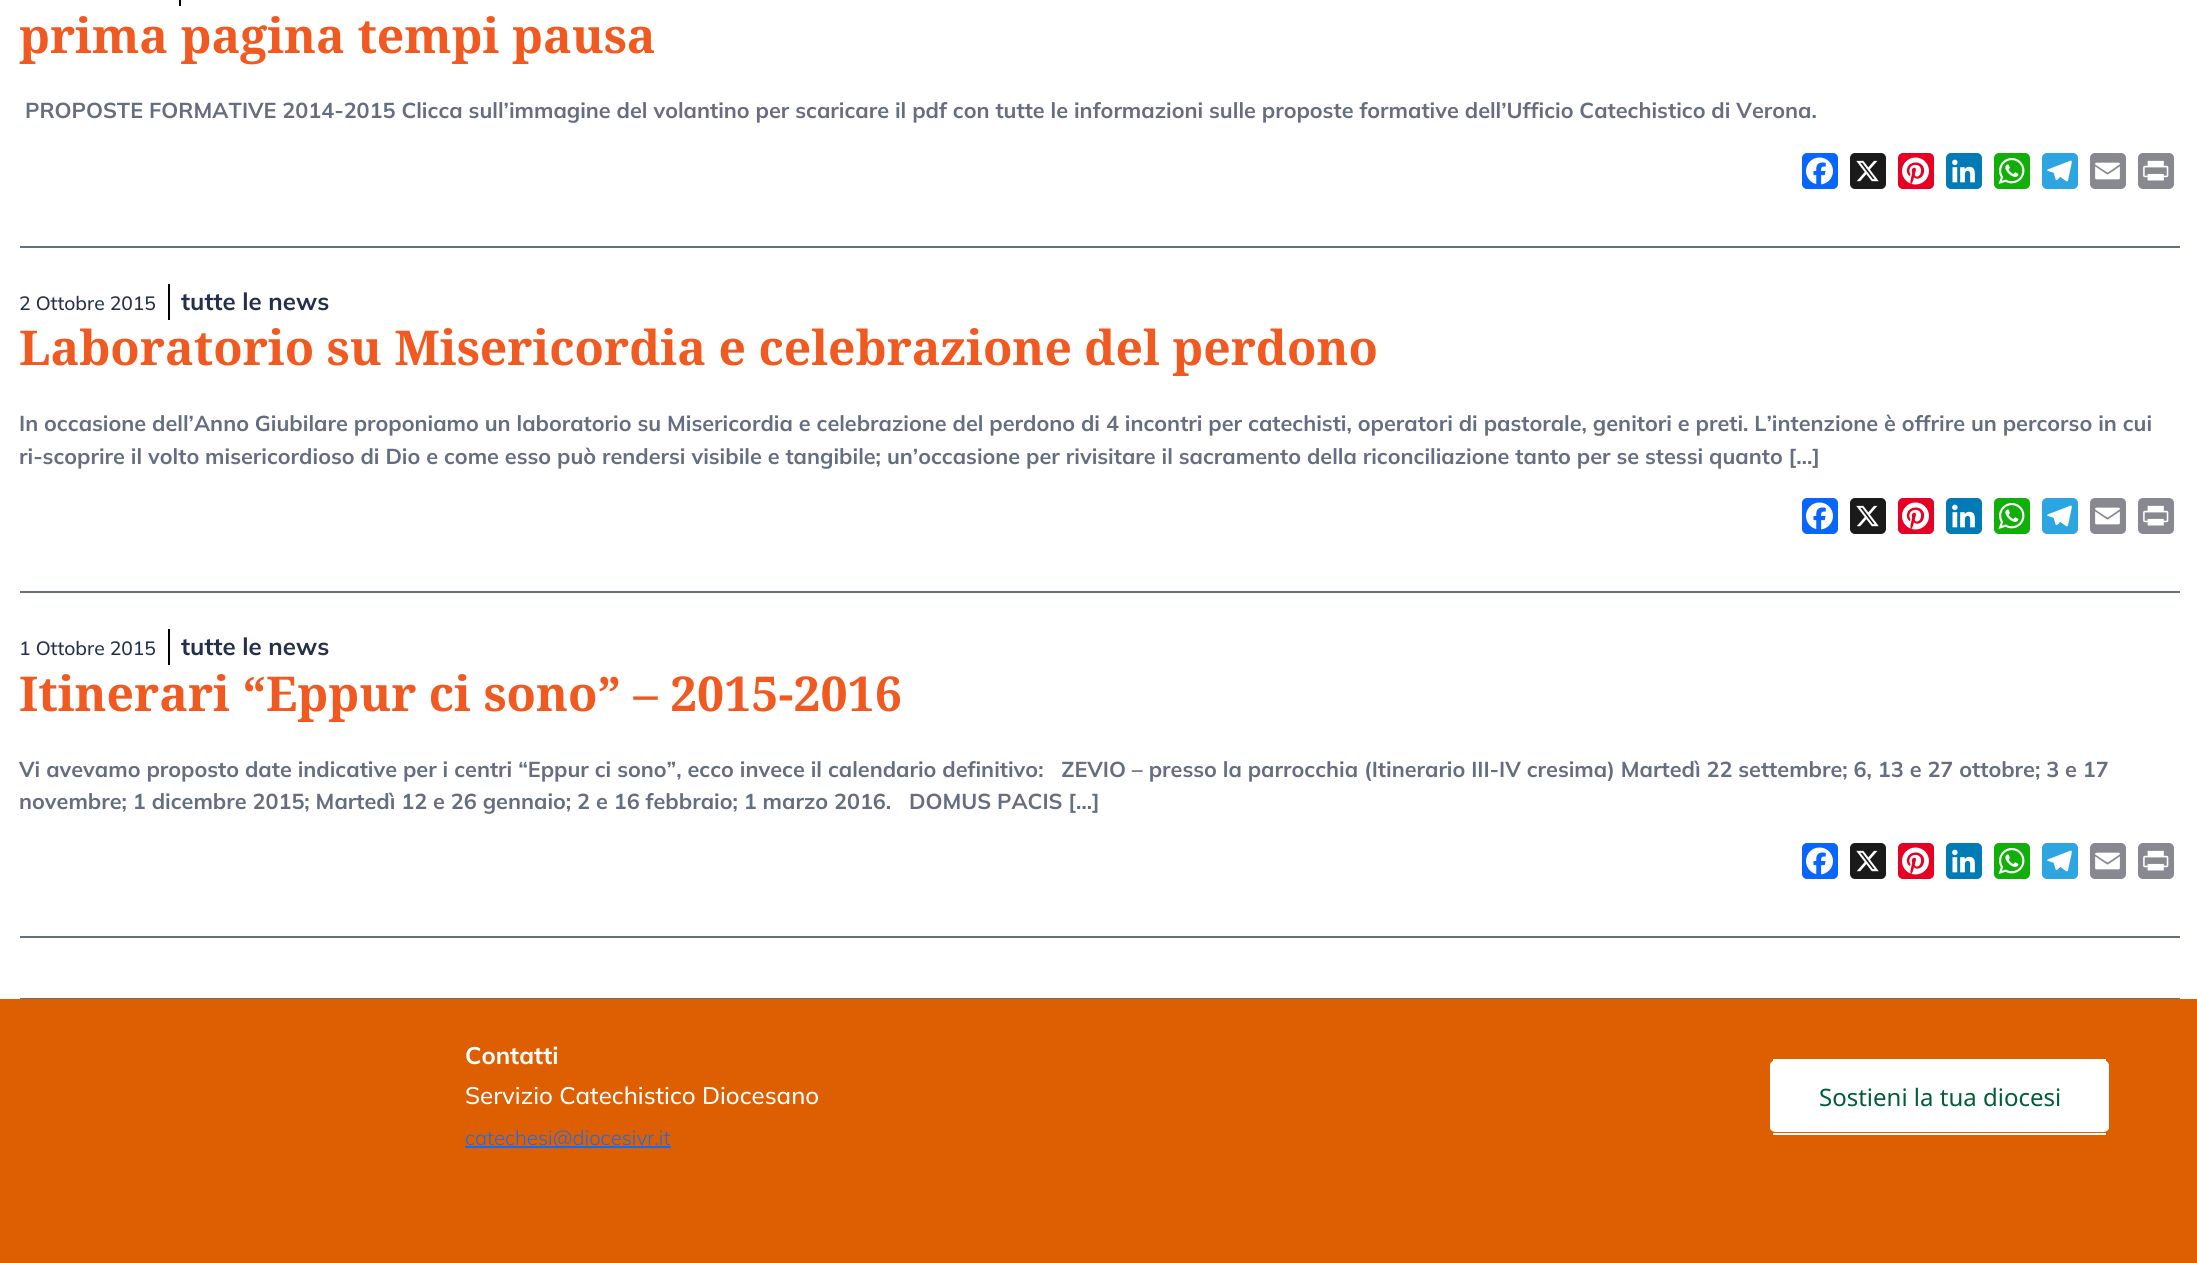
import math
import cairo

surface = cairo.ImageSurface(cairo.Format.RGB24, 2197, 1263)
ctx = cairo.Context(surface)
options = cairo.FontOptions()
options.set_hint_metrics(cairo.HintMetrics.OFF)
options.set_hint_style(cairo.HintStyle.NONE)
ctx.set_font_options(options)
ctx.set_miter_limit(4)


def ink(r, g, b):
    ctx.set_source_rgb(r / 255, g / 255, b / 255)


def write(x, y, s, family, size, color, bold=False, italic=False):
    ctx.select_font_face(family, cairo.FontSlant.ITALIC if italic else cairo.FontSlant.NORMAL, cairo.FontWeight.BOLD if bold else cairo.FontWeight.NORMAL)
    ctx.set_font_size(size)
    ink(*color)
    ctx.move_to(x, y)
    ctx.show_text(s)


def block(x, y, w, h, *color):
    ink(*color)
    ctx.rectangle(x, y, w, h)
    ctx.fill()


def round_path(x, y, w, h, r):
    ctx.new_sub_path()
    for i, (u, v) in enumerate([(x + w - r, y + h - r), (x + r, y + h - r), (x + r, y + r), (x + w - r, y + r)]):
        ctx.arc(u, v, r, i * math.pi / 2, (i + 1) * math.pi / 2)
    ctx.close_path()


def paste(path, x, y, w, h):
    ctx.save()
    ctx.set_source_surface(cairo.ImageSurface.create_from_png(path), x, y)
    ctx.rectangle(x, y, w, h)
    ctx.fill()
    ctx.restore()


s1 = dict(family="Noto Serif", size=48, color=(240, 89, 32), bold=True)
s2 = dict(family="Mulish", size=21.6, color=(101, 110, 129), bold=True)
s3 = dict(family="Mulish Medium", size=19.25, color=(35, 47, 75))
s4 = dict(family="Mulish", size=24, color=(35, 47, 75), bold=True)
s5 = dict(family="Mulish", size=24, color=(255, 255, 255), bold=True)
s6 = dict(family="Mulish Medium", size=24, color=(255, 255, 255))
s7 = dict(family="Mulish Light", size=20.4, color=(13, 110, 253))
s8 = dict(family="Noto Sans", size=24, color=(0, 93, 54))

ink(255, 255, 255)
ctx.paint()
block(20, 998, 2160, 1, 101, 110, 129)
block(20, 246, 2160, 2, 101, 110, 129)
block(179, 0, 2, 6, 0, 0, 0)
write(19, 53, "prima pagina tempi pausa", **s1)
write(25, 118, "PROPOSTE FORMATIVE 2014-2015 Clicca sull’immagine del volantino per scaricare il pdf con tutte le informazioni sulle proposte formative dell’Ufficio Catechistico di Verona.", **s2)
ink(8, 102, 255)
round_path(1802, 153, 36, 36, 5)
ctx.fill()
paste("pic1.png", 1806, 157, 27, 28)
ink(26, 26, 26)
round_path(1850, 153, 36, 36, 5)
ctx.fill()
paste("pic2.png", 1856, 160, 23, 22)
ink(230, 0, 35)
round_path(1898, 153, 36, 36, 5)
ctx.fill()
paste("pic3.png", 1902, 157, 27, 28)
ink(0, 123, 181)
round_path(1946, 153, 36, 36, 5)
ctx.fill()
paste("pic4.png", 1952, 159, 23, 24)
ink(18, 175, 10)
round_path(1994, 153, 36, 36, 5)
ctx.fill()
paste("pic5.png", 1998, 158, 27, 26)
ink(44, 165, 224)
round_path(2042, 153, 36, 36, 5)
ctx.fill()
paste("pic6.png", 2047, 160, 25, 22)
ink(136, 137, 144)
round_path(2090, 153, 36, 36, 5)
ctx.fill()
paste("pic7.png", 2095, 162, 25, 18)
round_path(2138, 153, 36, 36, 5)
ctx.fill()
paste("pic8.png", 2143, 160, 26, 21)
block(20, 591, 2160, 2, 101, 110, 129)
write(19, 310, "2 Ottobre 2015", **s3)
block(168, 284, 2, 36, 0, 0, 0)
write(181, 310, "tutte le news", **s4)
write(19, 365, "Laboratorio su Misericordia e celebrazione del perdono", **s1)
write(19, 431, "In occasione dell’Anno Giubilare proponiamo un laboratorio su Misericordia e celebrazione del perdono di 4 incontri per catechisti, operatori di pastorale, genitori e preti. L’intenzione è offrire un percorso in cui", **s2)
write(19, 464, "ri-scoprire il volto misericordioso di Dio e come esso può rendersi visibile e tangibile; un’occasione per rivisitare il sacramento della riconciliazione tanto per se stessi quanto […]", **s2)
ink(8, 102, 255)
round_path(1802, 498, 36, 36, 5)
ctx.fill()
paste("pic1.png", 1806, 502, 27, 28)
ink(26, 26, 26)
round_path(1850, 498, 36, 36, 5)
ctx.fill()
paste("pic2.png", 1856, 505, 23, 22)
ink(230, 0, 35)
round_path(1898, 498, 36, 36, 5)
ctx.fill()
paste("pic3.png", 1902, 502, 27, 28)
ink(0, 123, 181)
round_path(1946, 498, 36, 36, 5)
ctx.fill()
paste("pic4.png", 1952, 504, 23, 24)
ink(18, 175, 10)
round_path(1994, 498, 36, 36, 5)
ctx.fill()
paste("pic5.png", 1998, 503, 27, 26)
ink(44, 165, 224)
round_path(2042, 498, 36, 36, 5)
ctx.fill()
paste("pic6.png", 2047, 505, 25, 22)
ink(136, 137, 144)
round_path(2090, 498, 36, 36, 5)
ctx.fill()
paste("pic7.png", 2095, 507, 25, 18)
round_path(2138, 498, 36, 36, 5)
ctx.fill()
paste("pic8.png", 2143, 505, 26, 21)
block(20, 936, 2160, 2, 101, 110, 129)
write(19, 655, "1 Ottobre 2015", **s3)
block(168, 629, 2, 36, 0, 0, 0)
write(181, 655, "tutte le news", **s4)
write(19, 711, "Itinerari “Eppur ci sono” – 2015-2016", **s1)
write(19, 777, "Vi avevamo proposto date indicative per i centri “Eppur ci sono”, ecco invece il calendario definitivo:   ZEVIO – presso la parrocchia (Itinerario III-IV cresima) Martedì 22 settembre; 6, 13 e 27 ottobre; 3 e 17", **s2)
write(19, 809, "novembre; 1 dicembre 2015; Martedì 12 e 26 gennaio; 2 e 16 febbraio; 1 marzo 2016.   DOMUS PACIS […]", **s2)
ink(8, 102, 255)
round_path(1802, 843, 36, 36, 5)
ctx.fill()
paste("pic1.png", 1806, 847, 27, 28)
ink(26, 26, 26)
round_path(1850, 843, 36, 36, 5)
ctx.fill()
paste("pic2.png", 1856, 850, 23, 22)
ink(230, 0, 35)
round_path(1898, 843, 36, 36, 5)
ctx.fill()
paste("pic3.png", 1902, 847, 27, 28)
ink(0, 123, 181)
round_path(1946, 843, 36, 36, 5)
ctx.fill()
paste("pic4.png", 1952, 849, 23, 24)
ink(18, 175, 10)
round_path(1994, 843, 36, 36, 5)
ctx.fill()
paste("pic5.png", 1998, 848, 27, 26)
ink(44, 165, 224)
round_path(2042, 843, 36, 36, 5)
ctx.fill()
paste("pic6.png", 2047, 850, 25, 22)
ink(136, 137, 144)
round_path(2090, 843, 36, 36, 5)
ctx.fill()
paste("pic7.png", 2095, 852, 25, 18)
round_path(2138, 843, 36, 36, 5)
ctx.fill()
paste("pic8.png", 2143, 850, 26, 21)
block(0, 999, 2197, 264, 222, 95, 2)
write(465, 1064, "Contatti", **s5)
write(465, 1104, "Servizio Catechistico Diocesano", **s6)
block(465, 1146, 206, 2, 13, 110, 253)
write(465, 1145, "catechesi@diocesivr.it", **s7)
ink(255, 255, 255)
ctx.new_path()
ctx.move_to(1776, 1060)
ctx.line_to(2103, 1060)
ctx.curve_to(2106, 1060, 2109, 1063, 2109, 1065)
ctx.line_to(2109, 1128)
ctx.curve_to(2109, 1130, 2106, 1132, 2103, 1132)
ctx.line_to(1776, 1132)
ctx.curve_to(1773, 1132, 1770, 1130, 1770, 1128)
ctx.line_to(1770, 1065)
ctx.curve_to(1770, 1063, 1773, 1060, 1776, 1060)
ctx.close_path()
ctx.fill()
block(1773, 1059, 333, 2, 255, 255, 255)
block(1773, 1133, 333, 2, 255, 255, 255)
write(1819, 1106, "Sostieni la tua diocesi", **s8)
surface.write_to_png("screenshot.png")
